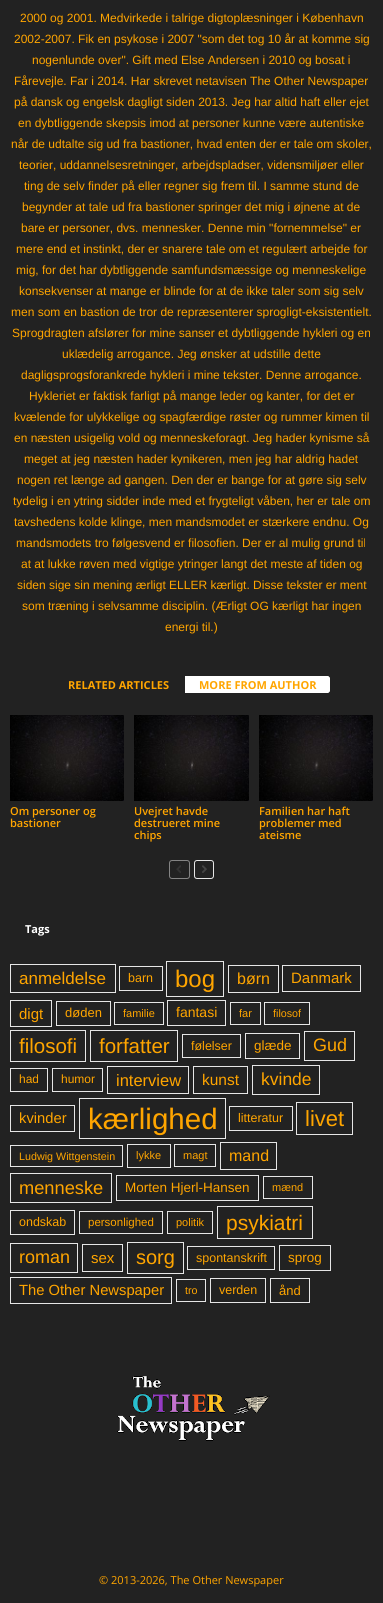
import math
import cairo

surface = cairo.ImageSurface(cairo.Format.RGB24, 383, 1603)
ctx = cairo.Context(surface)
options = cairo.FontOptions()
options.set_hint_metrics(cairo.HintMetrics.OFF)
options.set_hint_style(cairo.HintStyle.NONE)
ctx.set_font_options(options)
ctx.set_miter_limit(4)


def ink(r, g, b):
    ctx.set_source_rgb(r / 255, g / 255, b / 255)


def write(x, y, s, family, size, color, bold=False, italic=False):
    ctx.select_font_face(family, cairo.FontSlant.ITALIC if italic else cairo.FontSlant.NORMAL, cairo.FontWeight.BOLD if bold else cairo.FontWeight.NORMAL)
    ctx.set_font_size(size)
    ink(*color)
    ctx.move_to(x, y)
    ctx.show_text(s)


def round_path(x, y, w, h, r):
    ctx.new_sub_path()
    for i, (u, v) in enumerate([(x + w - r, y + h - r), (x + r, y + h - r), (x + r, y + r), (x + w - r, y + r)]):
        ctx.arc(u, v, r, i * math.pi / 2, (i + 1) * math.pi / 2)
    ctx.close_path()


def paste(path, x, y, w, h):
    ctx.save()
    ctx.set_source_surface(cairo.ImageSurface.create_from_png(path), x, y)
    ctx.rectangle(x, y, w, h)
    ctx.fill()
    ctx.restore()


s1 = dict(family="Liberation Sans", size=12, color=(255, 165, 0))
s2 = dict(family="Open Sans", size=11, color=(255, 165, 0), bold=True)
s3 = dict(family="Open Sans SemiBold", size=11, color=(255, 165, 0))
s4 = dict(family="Open Sans", size=11, color=(255, 255, 255), bold=True)
s5 = dict(family="Liberation Sans", size=17, color=(255, 165, 0))
s6 = dict(family="Liberation Sans", size=12.5, color=(255, 165, 0))
s7 = dict(family="Liberation Sans", size=24, color=(255, 165, 0))
s8 = dict(family="Liberation Sans", size=16, color=(255, 165, 0))
s9 = dict(family="Liberation Sans", size=15, color=(255, 165, 0))
s10 = dict(family="Liberation Sans", size=13, color=(255, 165, 0))
s11 = dict(family="Liberation Sans", size=11, color=(255, 165, 0))
s12 = dict(family="Liberation Sans", size=14, color=(255, 165, 0))
s13 = dict(family="Liberation Sans", size=10.75, color=(255, 165, 0))
s14 = dict(family="Liberation Sans", size=20.5, color=(255, 165, 0))
s15 = dict(family="Liberation Sans", size=13.5, color=(255, 165, 0))
s16 = dict(family="Liberation Sans", size=18, color=(255, 165, 0))
s17 = dict(family="Liberation Sans", size=16.5, color=(255, 165, 0))
s18 = dict(family="Liberation Sans", size=15.5, color=(255, 165, 0))
s19 = dict(family="Liberation Sans", size=17.5, color=(255, 165, 0))
s20 = dict(family="Liberation Sans", size=14.75, color=(255, 165, 0))
s21 = dict(family="Liberation Sans", size=29.5, color=(255, 165, 0))
s22 = dict(family="Liberation Sans", size=22, color=(255, 165, 0))
s23 = dict(family="Liberation Sans", size=18.25, color=(255, 165, 0))
s24 = dict(family="Liberation Sans", size=11.5, color=(255, 165, 0))
s25 = dict(family="Liberation Sans", size=21, color=(255, 165, 0))
s26 = dict(family="Liberation Sans", size=20, color=(255, 165, 0))
s27 = dict(family="Open Sans", size=11, color=(255, 165, 0))

ink(34, 34, 34)
ctx.paint()
write(20, 22, "2000 og 2001. Medvirkede i talrige digtoplæsninger i København", **s1)
write(14, 43, "2002-2007. Fik en psykose i 2007 \"som det tog 10 år at komme sig", **s1)
write(32, 64, "nogenlunde over\". Gift med Else Andersen i 2010 og bosat i", **s1)
write(14, 85, "Fårevejle. Far i 2014. Har skrevet netavisen The Other Newspaper", **s1)
write(14, 106, "på dansk og engelsk dagligt siden 2013. Jeg har altid haft eller ejet", **s1)
write(18, 127, "en dybtliggende skepsis imod at personer kunne være autentiske", **s1)
write(11, 148, "når de udtalte sig ud fra bastioner, hvad enten der er tale om skoler,", **s1)
write(19, 169, "teorier, uddannelsesretninger, arbejdspladser, vidensmiljøer eller", **s1)
write(24, 190, "ting de selv finder på eller regner sig frem til. I samme stund de", **s1)
write(22, 211, "begynder at tale ud fra bastioner springer det mig i øjnene at de", **s1)
write(21, 232, "bare er personer, dvs. mennesker. Denne min \"fornemmelse\" er", **s1)
write(16, 253, "mere end et instinkt, der er snarere tale om et regulært arbejde for", **s1)
write(16, 274, "mig, for det har dybtliggende samfundsmæssige og menneskelige", **s1)
write(19, 295, "konsekvenser at mange er blinde for at de ikke taler som sig selv", **s1)
write(11, 316, "men som en bastion de tror de repræsenterer sprogligt-eksistentielt.", **s1)
write(12, 337, "Sprogdragten afslører for mine sanser et dybtliggende hykleri og en", **s1)
write(62, 358, "uklædelig arrogance. Jeg ønsker at udstille dette", **s1)
write(21, 379, "dagligsprogsforankrede hykleri i mine tekster. Denne arrogance.", **s1)
write(29, 400, "Hykleriet er faktisk farligt på mange leder og kanter, for det er", **s1)
write(14, 421, "kvælende for ulykkelige og spagfærdige røster og rummer kimen til", **s1)
write(14, 442, "en næsten usigelig vold og menneskeforagt. Jeg hader kynisme så", **s1)
write(24, 463, "meget at jeg næsten hader kynikeren, men jeg har aldrig hadet", **s1)
write(17, 484, "nogen ret længe ad gangen. Den der er bange for at gøre sig selv", **s1)
write(13, 505, "tydelig i en ytring sidder inde med et frygteligt våben, her er tale om", **s1)
write(14, 526, "tavshedens kolde klinge, men mandsmodet er stærkere endnu. Og", **s1)
write(16, 547, "mandsmodets tro følgesvend er filosofien. Der er al mulig grund til", **s1)
write(21, 568, "at at lukke røven med vigtige ytringer langt det meste af tiden og", **s1)
write(17, 589, "siden sige sin mening ærligt ELLER kærligt. Disse tekster er ment", **s1)
write(22, 610, "som træning i selvsamme disciplin. (Ærligt OG kærligt har ingen", **s1)
write(165, 631, "energi til.)", **s1)
write(68, 689, "RELATED ARTICLES", **s2)
ink(255, 255, 255)
ctx.new_path()
ctx.move_to(185, 676)
ctx.line_to(328, 676)
ctx.curve_to(329, 676, 330, 677, 330, 678)
ctx.line_to(330, 691)
ctx.curve_to(330, 692, 329, 693, 328, 693)
ctx.line_to(185, 693)
ctx.close_path()
ctx.fill()
ink(34, 34, 34)
ctx.set_fill_rule(cairo.FillRule.EVEN_ODD)
ctx.new_path()
ctx.move_to(185, 675)
ctx.line_to(328, 675)
ctx.curve_to(330, 675, 331, 676, 331, 678)
ctx.line_to(331, 691)
ctx.curve_to(331, 693, 330, 694, 328, 694)
ctx.line_to(185, 694)
ctx.close_path()
ctx.move_to(185, 676)
ctx.line_to(328, 676)
ctx.curve_to(329, 676, 330, 677, 330, 678)
ctx.line_to(330, 691)
ctx.curve_to(330, 692, 329, 693, 328, 693)
ctx.line_to(185, 693)
ctx.close_path()
ctx.fill()
write(199, 689, "MORE FROM AUTHOR", **s2)
paste("pic1.png", 10, 715, 114, 86)
write(10, 815, "Om personer og", **s3)
write(10, 827, "bastioner", **s3)
paste("pic2.png", 134, 715, 115, 86)
write(134, 815, "Uvejret havde", **s3)
write(134, 827, "destrueret mine", **s3)
write(134, 839, "chips", **s3)
paste("pic1.png", 259, 715, 114, 86)
write(259, 815, "Familien har haft", **s3)
write(259, 827, "problemer med", **s3)
write(259, 839, "ateisme", **s3)
round_path(169.5, 860.5, 20, 18, 2.5)
ink(132, 132, 132)
ctx.set_line_width(1)
ctx.stroke()
paste("pic3.png", 176, 865, 5, 8)
round_path(194.5, 860.5, 19, 18, 2.5)
ink(230, 230, 230)
ctx.stroke()
paste("pic4.png", 202, 865, 5, 8)
write(25, 933, "Tags", **s4)
ctx.rectangle(10.5, 964.5, 105, 28)
ink(230, 230, 230)
ctx.stroke()
write(19, 984, "anmeldelse", **s5)
ctx.rectangle(119.5, 966.5, 43, 24)
ink(230, 230, 230)
ctx.stroke()
write(128, 982, "barn", **s6)
ctx.rectangle(166.5, 961.5, 57, 35)
ink(230, 230, 230)
ctx.stroke()
write(175, 987, "bog", **s7)
ctx.rectangle(228.5, 965.5, 50, 27)
ink(230, 230, 230)
ctx.stroke()
write(237, 984, "børn", **s8)
ctx.rectangle(282.5, 965.5, 78, 26)
ink(230, 230, 230)
ctx.stroke()
write(291, 983, "Danmark", **s9)
ctx.rectangle(10.5, 1000.5, 41, 26)
ink(230, 230, 230)
ctx.stroke()
write(19, 1019, "digt", **s9)
ctx.rectangle(56.5, 1001.5, 54, 24)
ink(230, 230, 230)
ctx.stroke()
write(65, 1017, "døden", **s10)
ctx.rectangle(114.5, 1002.5, 49, 22)
ink(230, 230, 230)
ctx.stroke()
write(123, 1017, "familie", **s11)
ctx.rectangle(167.5, 1000.5, 58, 25)
ink(230, 230, 230)
ctx.stroke()
write(176, 1017, "fantasi", **s12)
ctx.rectangle(230.5, 1002.5, 30, 22)
ink(230, 230, 230)
ctx.stroke()
write(239, 1017, "far", **s11)
ctx.rectangle(264.5, 1002.5, 45, 22)
ink(230, 230, 230)
ctx.stroke()
write(273, 1017, "filosof", **s13)
ctx.rectangle(10.5, 1030.5, 75, 31)
ink(230, 230, 230)
ctx.stroke()
write(19, 1053, "filosofi", **s14)
ctx.rectangle(90.5, 1030.5, 87, 31)
ink(230, 230, 230)
ctx.stroke()
write(99, 1053, "forfatter", **s14)
ctx.rectangle(182.5, 1034.5, 58, 23)
ink(230, 230, 230)
ctx.stroke()
write(191, 1050, "følelser", **s6)
ctx.rectangle(245.5, 1033.5, 54, 25)
ink(230, 230, 230)
ctx.stroke()
write(254, 1050, "glæde", **s15)
ctx.rectangle(304.5, 1031.5, 50, 29)
ink(230, 230, 230)
ctx.stroke()
write(313, 1051, "Gud", **s16)
ctx.rectangle(10.5, 1068.5, 37, 23)
ink(230, 230, 230)
ctx.stroke()
write(19, 1083, "had", **s1)
ctx.rectangle(52.5, 1068.5, 50, 23)
ink(230, 230, 230)
ctx.stroke()
write(61, 1083, "humor", **s1)
ctx.rectangle(107.5, 1066.5, 81, 27)
ink(230, 230, 230)
ctx.stroke()
write(116, 1086, "interview", **s17)
ctx.rectangle(193.5, 1066.5, 54, 27)
ink(230, 230, 230)
ctx.stroke()
write(202, 1085, "kunst", **s18)
ctx.rectangle(252.5, 1065.5, 67, 29)
ink(230, 230, 230)
ctx.stroke()
write(261, 1085, "kvinde", **s19)
ctx.rectangle(10.5, 1105.5, 64, 26)
ink(230, 230, 230)
ctx.stroke()
write(19, 1123, "kvinder", **s20)
ctx.rectangle(79.5, 1098.5, 146, 40)
ink(230, 230, 230)
ctx.stroke()
write(88, 1129, "kærlighed", **s21)
ctx.rectangle(229.5, 1106.5, 63, 24)
ink(230, 230, 230)
ctx.stroke()
write(238, 1122, "litteratur", **s6)
ctx.rectangle(296.5, 1102.5, 56, 32)
ink(230, 230, 230)
ctx.stroke()
write(305, 1126, "livet", **s22)
ctx.rectangle(10.5, 1145.5, 112, 21)
ink(230, 230, 230)
ctx.stroke()
write(19, 1160, "Ludwig Wittgenstein", **s13)
ctx.rectangle(127.5, 1144.5, 43, 23)
ink(230, 230, 230)
ctx.stroke()
write(136, 1159, "lykke", **s11)
ctx.rectangle(174.5, 1144.5, 41, 22)
ink(230, 230, 230)
ctx.stroke()
write(183, 1159, "magt", **s11)
ctx.rectangle(220.5, 1142.5, 56, 27)
ink(230, 230, 230)
ctx.stroke()
write(229, 1161, "mand", **s8)
ctx.rectangle(10.5, 1173.5, 101, 29)
ink(230, 230, 230)
ctx.stroke()
write(19, 1194, "menneske", **s23)
ctx.rectangle(116.5, 1175.5, 142, 25)
ink(230, 230, 230)
ctx.stroke()
write(125, 1192, "Morten Hjerl-Hansen", **s15)
ctx.rectangle(263.5, 1176.5, 49, 22)
ink(230, 230, 230)
ctx.stroke()
write(272, 1191, "mænd", **s11)
ctx.rectangle(10.5, 1210.5, 64, 24)
ink(230, 230, 230)
ctx.stroke()
write(19, 1226, "ondskab", **s6)
ctx.rectangle(79.5, 1211.5, 83, 22)
ink(230, 230, 230)
ctx.stroke()
write(88, 1226, "personlighed", **s24)
ctx.rectangle(167.5, 1211.5, 45, 22)
ink(230, 230, 230)
ctx.stroke()
write(176, 1226, "politik", **s11)
ctx.rectangle(217.5, 1206.5, 95, 32)
ink(230, 230, 230)
ctx.stroke()
write(226, 1230, "psykiatri", **s25)
ctx.rectangle(10.5, 1243.5, 67, 29)
ink(230, 230, 230)
ctx.stroke()
write(19, 1263, "roman", **s16)
ctx.rectangle(82.5, 1244.5, 40, 27)
ink(230, 230, 230)
ctx.stroke()
write(91, 1263, "sex", **s9)
ctx.rectangle(127.5, 1242.5, 56, 31)
ink(230, 230, 230)
ctx.stroke()
write(136, 1264, "sorg", **s26)
ctx.rectangle(187.5, 1246.5, 87, 23)
ink(230, 230, 230)
ctx.stroke()
write(196, 1262, "spontanskrift", **s6)
ctx.rectangle(279.5, 1245.5, 51, 25)
ink(230, 230, 230)
ctx.stroke()
write(288, 1262, "sprog", **s15)
ctx.rectangle(10.5, 1277.5, 161, 26)
ink(230, 230, 230)
ctx.stroke()
write(19, 1295, "The Other Newspaper", **s20)
ctx.rectangle(176.5, 1279.5, 29, 22)
ink(230, 230, 230)
ctx.stroke()
write(185, 1294, "tro", **s13)
ctx.rectangle(210.5, 1278.5, 55, 24)
ink(230, 230, 230)
ctx.stroke()
write(219, 1294, "verden", **s6)
ctx.rectangle(270.5, 1278.5, 39, 24)
ink(230, 230, 230)
ctx.stroke()
write(279, 1295, "ånd", **s10)
paste("pic5.png", 117, 1376, 153, 65)
write(99, 1584, "© 2013-2026, The Other Newspaper", **s27)
surface.write_to_png("screenshot.png")
